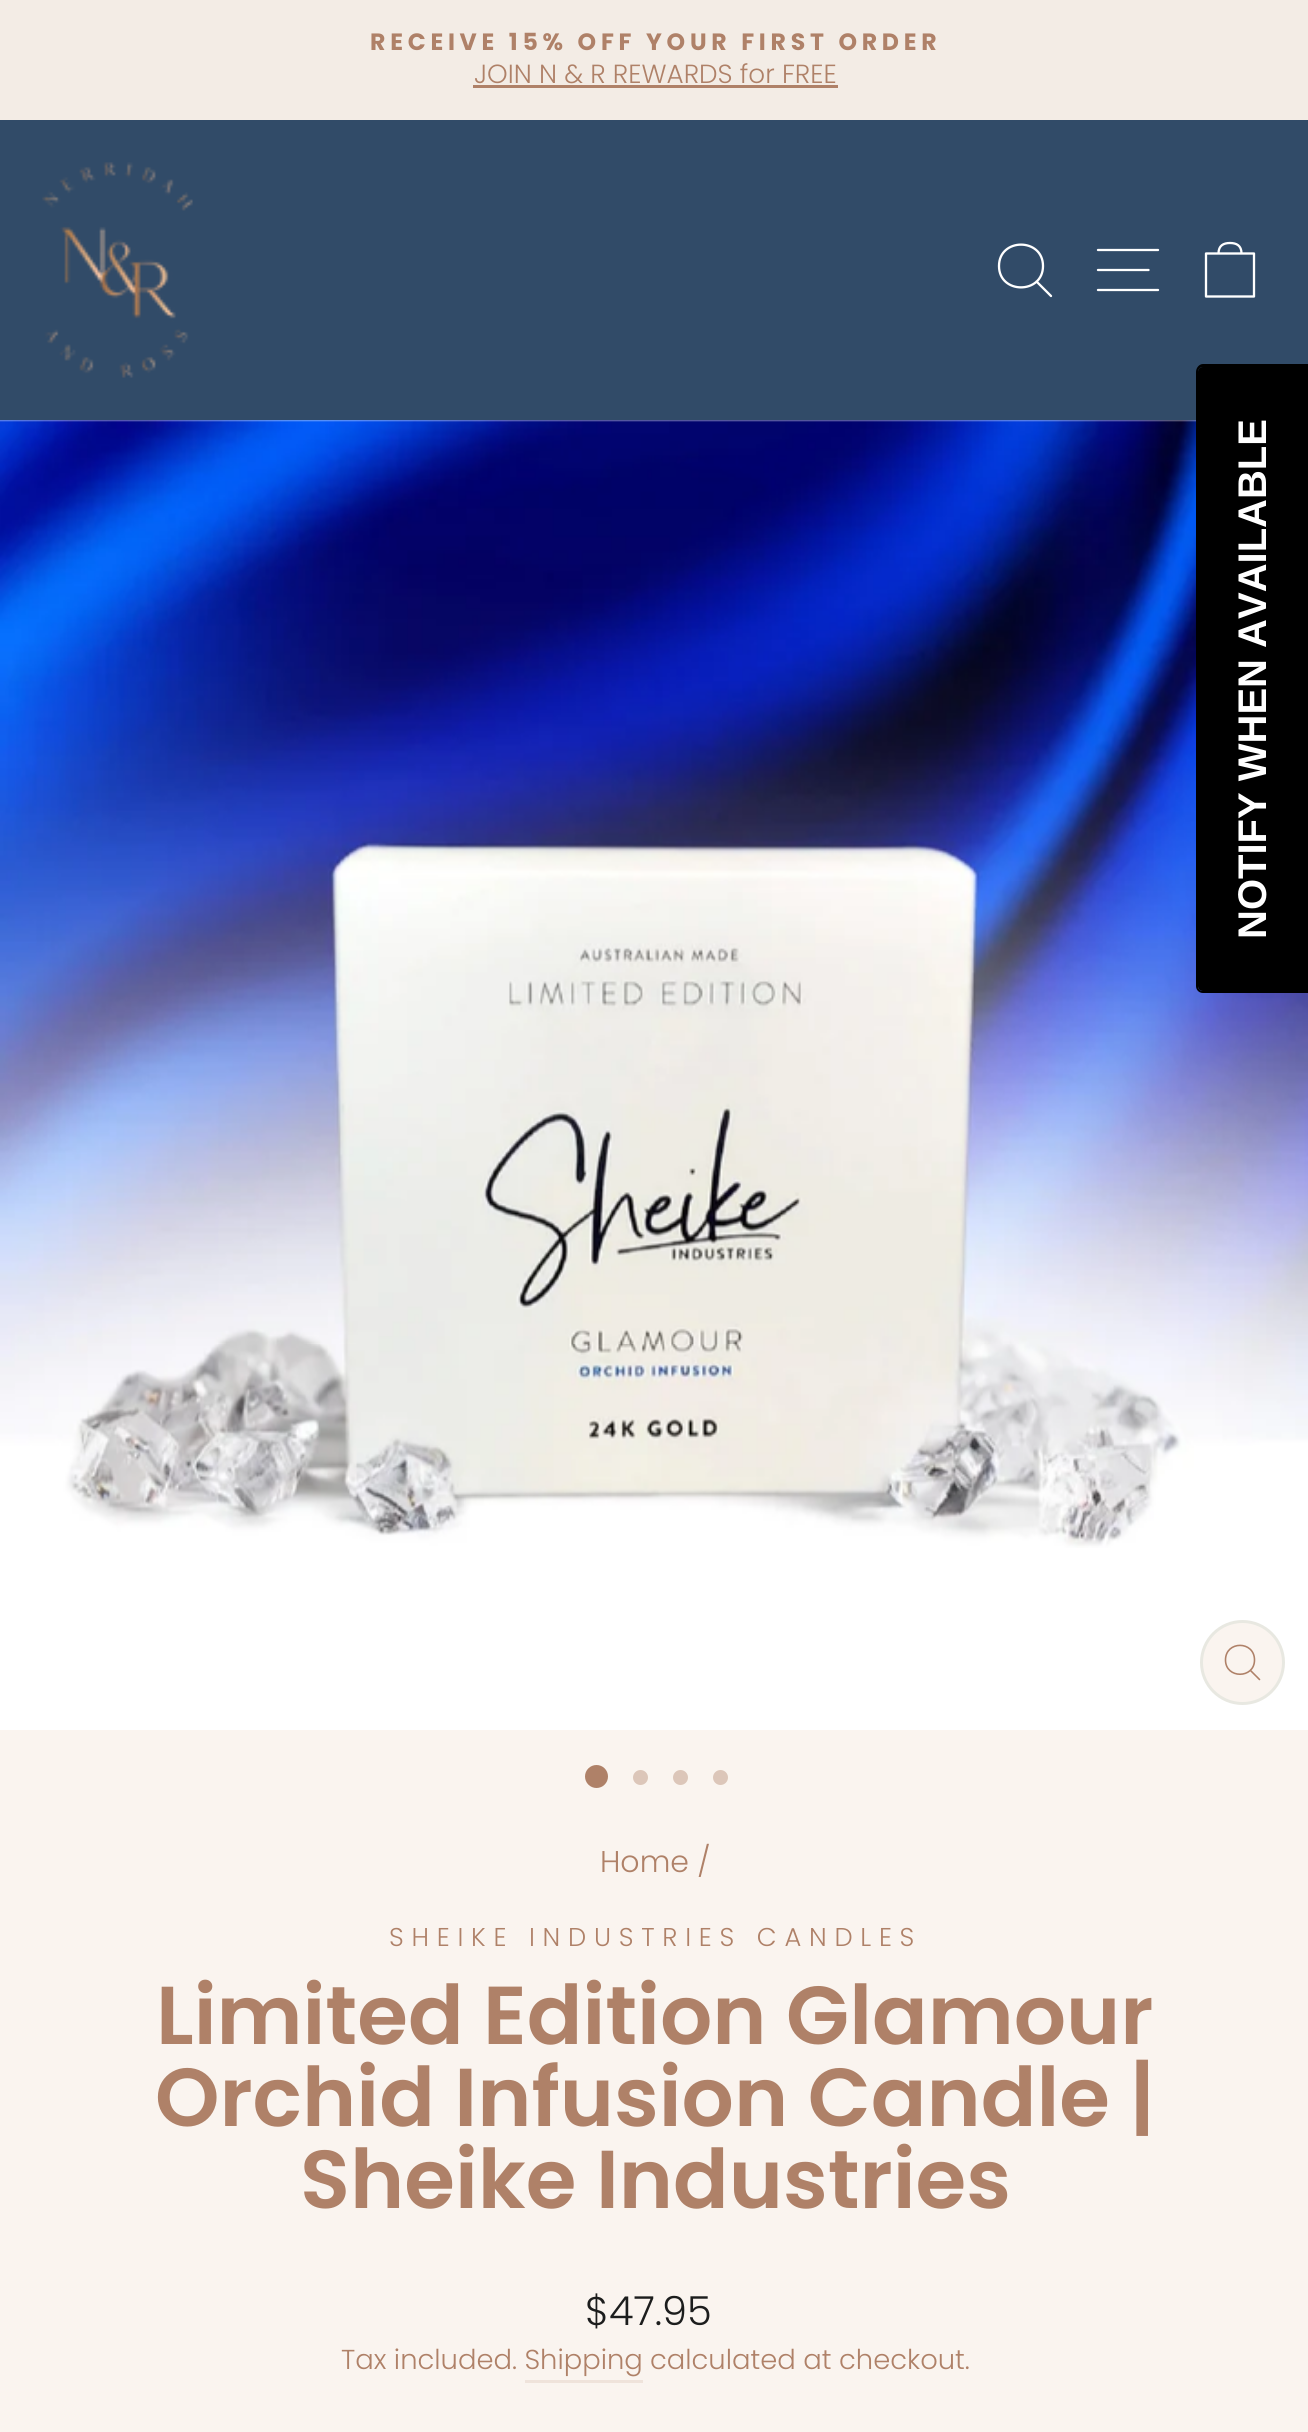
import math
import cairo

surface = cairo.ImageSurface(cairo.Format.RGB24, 1308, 2432)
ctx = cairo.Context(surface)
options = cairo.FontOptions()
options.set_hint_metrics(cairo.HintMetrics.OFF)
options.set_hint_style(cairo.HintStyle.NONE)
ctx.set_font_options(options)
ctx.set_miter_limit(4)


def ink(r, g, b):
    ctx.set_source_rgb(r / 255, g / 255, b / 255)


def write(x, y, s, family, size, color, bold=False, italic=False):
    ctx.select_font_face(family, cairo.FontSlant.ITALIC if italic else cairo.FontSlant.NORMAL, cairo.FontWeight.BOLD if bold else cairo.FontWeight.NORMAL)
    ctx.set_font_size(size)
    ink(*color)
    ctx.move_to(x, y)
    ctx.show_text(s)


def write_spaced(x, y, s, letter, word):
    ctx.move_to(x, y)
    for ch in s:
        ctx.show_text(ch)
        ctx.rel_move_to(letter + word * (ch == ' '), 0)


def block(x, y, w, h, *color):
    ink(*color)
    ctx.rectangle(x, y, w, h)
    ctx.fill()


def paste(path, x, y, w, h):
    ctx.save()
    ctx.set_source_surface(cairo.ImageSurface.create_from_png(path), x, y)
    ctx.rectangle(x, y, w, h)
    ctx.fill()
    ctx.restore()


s1 = dict(family="Poppins Light", size=26.25, color=(175, 129, 104))
s2 = dict(family="Poppins Light", size=30, color=(175, 129, 104))
s3 = dict(family="Poppins SemiBold", size=82.1, color=(175, 129, 104))
s4 = dict(family="Poppins Light", size=40, color=(28, 29, 29))
s5 = dict(family="Poppins Light", size=27.4, color=(175, 129, 104))
s6 = dict(family="Liberation Sans", size=40, color=(255, 255, 255), bold=True)

ink(250, 244, 239)
ctx.paint()
block(0, 0, 1308, 120, 243, 236, 229)
ctx.select_font_face("Poppins", cairo.FontSlant.NORMAL, cairo.FontWeight.BOLD)
ctx.set_font_size(23.6)
ink(175, 129, 104)
write_spaced(370, 50, "RECEIVE 15% OFF YOUR FIRST ORDER", 4.75, 0)
write(474, 83, "JOIN N & R REWARDS for FREE", **s1)
block(473, 85, 365, 3, 175, 129, 104)
block(0, 120, 1308, 300, 49, 75, 104)
paste("pic1.png", 42, 162, 151, 216)
ctx.new_path()
ctx.move_to(1043, 266)
ctx.curve_to(1043, 294.5, 999, 294.5, 999, 266)
ctx.curve_to(999, 237.5, 1043, 237.5, 1043, 266)
ctx.close_path()
ctx.move_to(1051, 296)
ctx.line_to(1036.5, 281.5)
ink(255, 255, 255)
ctx.set_line_width(2.3)
ctx.set_line_cap(cairo.LineCap.ROUND)
ctx.set_line_join(cairo.LineJoin.ROUND)
ctx.stroke()
ctx.new_path()
ctx.move_to(1098, 250)
ctx.line_to(1158, 250)
ctx.move_to(1098, 270)
ctx.line_to(1148.5, 270)
ctx.move_to(1098, 290)
ctx.line_to(1158, 290)
ctx.stroke()
ctx.new_path()
ctx.move_to(1206, 253.5)
ctx.line_to(1254, 253.5)
ctx.line_to(1254, 296.5)
ctx.line_to(1206, 296.5)
ctx.close_path()
ctx.move_to(1218.5, 253.5)
ctx.curve_to(1218.5, 245.5, 1223.5, 243, 1230, 243)
ctx.curve_to(1236.5, 243, 1241.5, 245.5, 1241.5, 253.5)
ctx.stroke()
block(0, 420, 1308, 1310, 255, 255, 255)
paste("pic2.png", 0, 420, 1308, 1128)
ink(250, 244, 239)
ctx.arc(1242.5, 1662.5, 41, 0, 2 * math.pi)
ctx.fill_preserve()
ink(232, 232, 225)
ctx.set_line_width(3)
ctx.set_line_cap(cairo.LineCap.BUTT)
ctx.set_line_join(cairo.LineJoin.MITER)
ctx.stroke()
ctx.new_path()
ctx.move_to(1254.5, 1660)
ctx.curve_to(1254.5, 1679, 1225.5, 1679, 1225.5, 1660)
ctx.curve_to(1225.5, 1640.5, 1254.5, 1640.5, 1254.5, 1660)
ctx.close_path()
ctx.move_to(1259.5, 1679.5)
ctx.line_to(1250.5, 1670.5)
ink(175, 129, 104)
ctx.set_line_width(1.6)
ctx.set_line_cap(cairo.LineCap.ROUND)
ctx.set_line_join(cairo.LineJoin.ROUND)
ctx.stroke()
ctx.arc(596.5, 1776.5, 11.5, 0, 2 * math.pi)
ctx.fill()
ink(220, 198, 185)
ctx.arc(640.5, 1777.5, 7.5, 0, 2 * math.pi)
ctx.fill()
ctx.arc(680.5, 1777.5, 7.5, 0, 2 * math.pi)
ctx.fill()
ctx.arc(720.5, 1777.5, 7.5, 0, 2 * math.pi)
ctx.fill()
write(600, 1872, "Home /", **s2)
ctx.set_font_size(25.75)
write_spaced(389, 1946, "SHEIKE INDUSTRIES CANDLES", 7.75, 0)
write(156, 2044, "Limited Edition Glamour", **s3)
write(155, 2126, "Orchid Infusion Candle |", **s3)
write(300, 2208, "Sheike Industries", **s3)
write(585, 2325, "$47.95", **s4)
write(341, 2369, "Tax included. Shipping", **s5)
write(650, 2369, "calculated at checkout.", **s5)
block(525, 2380, 118, 3, 239, 227, 219)
ink(0, 0, 0)
ctx.new_path()
ctx.move_to(1198, 986)
ctx.line_to(1198, 372)
ctx.curve_to(1198, 369, 1200, 367, 1203, 367)
ctx.line_to(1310, 367)
ctx.line_to(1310, 991)
ctx.line_to(1203, 991)
ctx.curve_to(1200, 991, 1198, 989, 1198, 986)
ctx.close_path()
ctx.fill()
ctx.set_fill_rule(cairo.FillRule.EVEN_ODD)
ctx.new_path()
ctx.move_to(1196, 986)
ctx.line_to(1196, 372)
ctx.curve_to(1196, 368, 1199, 364, 1203, 364)
ctx.line_to(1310, 364)
ctx.line_to(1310, 993)
ctx.line_to(1203, 993)
ctx.curve_to(1199, 993, 1196, 990, 1196, 986)
ctx.close_path()
ctx.move_to(1198, 986)
ctx.line_to(1198, 372)
ctx.curve_to(1198, 369, 1200, 367, 1203, 367)
ctx.line_to(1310, 367)
ctx.line_to(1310, 991)
ctx.line_to(1203, 991)
ctx.curve_to(1200, 991, 1198, 989, 1198, 986)
ctx.close_path()
ctx.fill()
ctx.save()
ctx.translate(1266, 939)
ctx.rotate(-90 * math.pi / 180)
write(0, 0, "NOTIFY WHEN AVAILABLE", **s6)
ctx.restore()
surface.write_to_png("screenshot.png")
